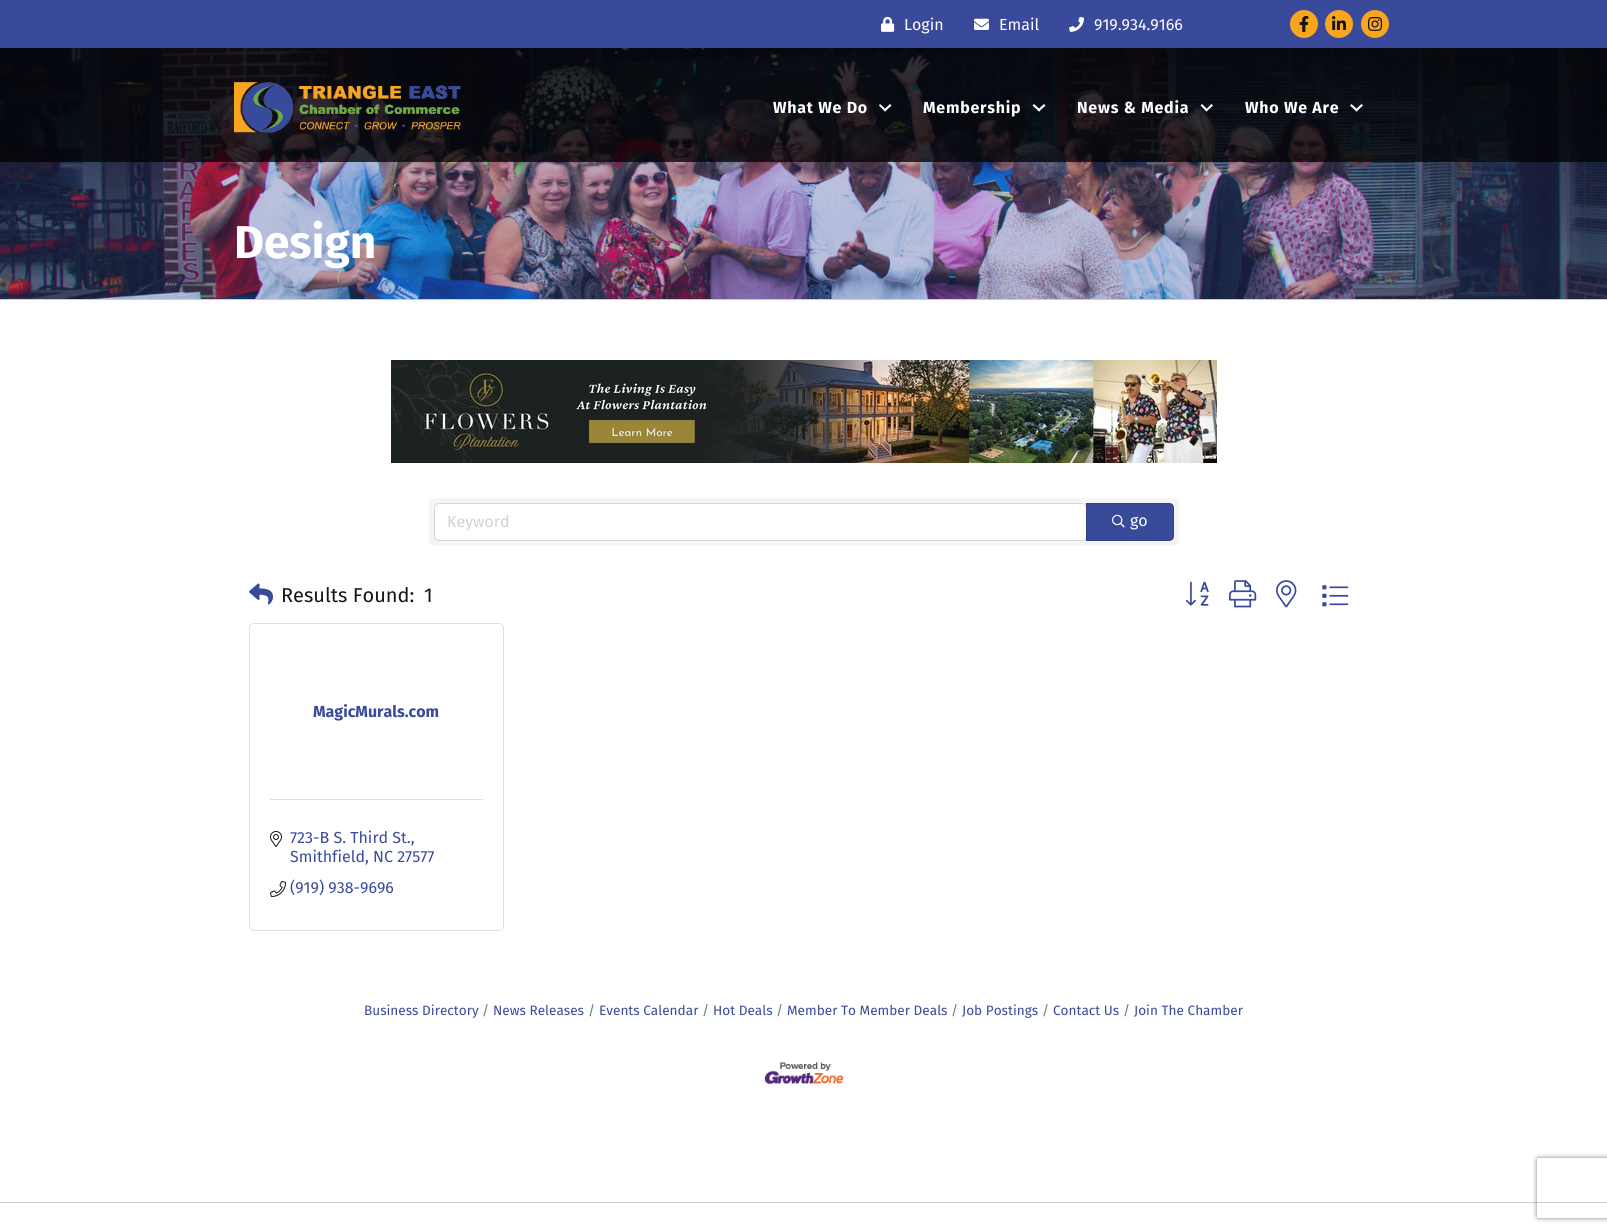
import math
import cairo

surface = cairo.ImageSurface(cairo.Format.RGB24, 1607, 1232)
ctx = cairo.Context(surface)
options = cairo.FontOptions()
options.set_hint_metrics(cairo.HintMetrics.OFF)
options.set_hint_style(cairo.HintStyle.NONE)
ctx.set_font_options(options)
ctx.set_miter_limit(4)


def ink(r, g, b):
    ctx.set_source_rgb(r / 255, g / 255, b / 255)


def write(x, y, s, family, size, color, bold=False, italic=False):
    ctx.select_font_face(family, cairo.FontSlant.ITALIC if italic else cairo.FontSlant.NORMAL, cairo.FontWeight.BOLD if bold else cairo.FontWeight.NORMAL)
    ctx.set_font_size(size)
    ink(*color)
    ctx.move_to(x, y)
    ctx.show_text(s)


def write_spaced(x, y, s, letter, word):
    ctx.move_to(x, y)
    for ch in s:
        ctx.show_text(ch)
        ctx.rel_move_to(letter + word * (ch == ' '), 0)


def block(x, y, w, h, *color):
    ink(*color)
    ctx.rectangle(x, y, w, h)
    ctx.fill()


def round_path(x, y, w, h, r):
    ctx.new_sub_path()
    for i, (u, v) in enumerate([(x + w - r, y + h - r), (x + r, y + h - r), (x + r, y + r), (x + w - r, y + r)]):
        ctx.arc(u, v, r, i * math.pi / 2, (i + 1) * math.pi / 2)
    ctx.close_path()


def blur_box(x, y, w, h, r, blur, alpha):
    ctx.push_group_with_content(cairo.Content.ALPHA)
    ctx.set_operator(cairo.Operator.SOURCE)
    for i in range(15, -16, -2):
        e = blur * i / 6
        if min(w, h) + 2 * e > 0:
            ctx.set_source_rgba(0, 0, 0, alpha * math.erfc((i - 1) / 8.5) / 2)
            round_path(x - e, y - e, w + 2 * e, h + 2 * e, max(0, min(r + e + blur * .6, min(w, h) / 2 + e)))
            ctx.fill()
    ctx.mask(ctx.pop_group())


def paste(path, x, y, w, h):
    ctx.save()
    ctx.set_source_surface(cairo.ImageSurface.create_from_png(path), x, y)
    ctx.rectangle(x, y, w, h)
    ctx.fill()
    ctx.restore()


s1 = dict(family="Fira Sans", size=16, color=(255, 255, 255))
s2 = dict(family="Fira Sans", size=46, color=(255, 255, 255), bold=True)
s3 = dict(family="Fira Sans", size=16, color=(210, 210, 210))
s4 = dict(family="Fira Sans", size=20, color=(22, 19, 19))
s5 = dict(family="Fira Sans", size=16, color=(57, 74, 155), bold=True)
s6 = dict(family="Fira Sans", size=16, color=(57, 74, 155))
s7 = dict(family="Fira Sans", size=13.6, color=(57, 74, 155))
s8 = dict(family="Fira Sans", size=13.6, color=(108, 117, 125))

ink(57, 74, 155)
ctx.paint()
paste("pic1.png", 881, 16, 14, 16)
write(904, 30, "Login", **s1)
paste("pic2.png", 974, 18, 15, 12)
write(999, 30, "Email", **s1)
paste("pic3.png", 1069, 16, 15, 16)
write(1094, 30, "919.934.9166", **s1)
ink(250, 165, 30)
ctx.new_path()
ctx.arc(1304, 24, 14, 0, 2 * math.pi)
ctx.fill()
paste("pic4.png", 1299, 16, 10, 16)
ctx.arc(1339, 24, 14, 0, 2 * math.pi)
ctx.fill()
paste("pic5.png", 1332, 16, 14, 14)
ctx.arc(1375, 24, 14, 0, 2 * math.pi)
ctx.fill()
paste("pic6.png", 1368, 17, 15, 14)
paste("pic8.png", 0, 48, 1607, 251)
ctx.set_source_rgba(0, 0, 0, 0.75)
ctx.rectangle(0, 48, 1607, 114)
ctx.fill()
paste("pic7.png", 234, 82, 227, 51)
ctx.select_font_face("Fira Sans", cairo.FontSlant.NORMAL, cairo.FontWeight.BOLD)
ink(255, 255, 255)
write_spaced(773, 113, "What We Do", 0.75, 0)
ctx.new_path()
ctx.move_to(890, 104)
ctx.line_to(891.5, 105.5)
ctx.line_to(885, 111.5)
ctx.line_to(883.5, 110)
ctx.close_path()
ctx.fill()
ctx.new_path()
ctx.move_to(880, 104)
ctx.line_to(886.5, 110)
ctx.line_to(885, 111.5)
ctx.line_to(879, 105.5)
ctx.close_path()
ctx.fill()
write_spaced(923, 113, "Membership", 0.75, 0)
ctx.new_path()
ctx.move_to(1044, 104)
ctx.line_to(1045.5, 105.5)
ctx.line_to(1039, 111.5)
ctx.line_to(1037.5, 110)
ctx.close_path()
ctx.fill()
ctx.new_path()
ctx.move_to(1034, 104)
ctx.line_to(1040.5, 110)
ctx.line_to(1039, 111.5)
ctx.line_to(1032.5, 105.5)
ctx.close_path()
ctx.fill()
write_spaced(1077, 113, "News & Media", 0.75, 0)
ctx.new_path()
ctx.move_to(1211.5, 104)
ctx.line_to(1213, 105.5)
ctx.line_to(1206.5, 111.5)
ctx.line_to(1205.5, 110)
ctx.close_path()
ctx.fill()
ctx.new_path()
ctx.move_to(1202, 104)
ctx.line_to(1208, 110)
ctx.line_to(1206.5, 111.5)
ctx.line_to(1200.5, 105.5)
ctx.close_path()
ctx.fill()
write_spaced(1245, 113, "Who We Are", 0.75, 0)
ctx.new_path()
ctx.move_to(1361.5, 104)
ctx.line_to(1363, 105.5)
ctx.line_to(1356.5, 111.5)
ctx.line_to(1355, 110)
ctx.close_path()
ctx.fill()
ctx.new_path()
ctx.move_to(1351.5, 104)
ctx.line_to(1358, 110)
ctx.line_to(1356.5, 111.5)
ctx.line_to(1350, 105.5)
ctx.close_path()
ctx.fill()
block(0, 300, 1607, 902, 255, 255, 255)
block(0, 299, 1607, 1, 204, 204, 204)
write(234, 258, "Design", **s2)
paste("pic9.png", 391, 360, 826, 103)
ink(245, 245, 245)
round_path(429, 498, 750, 48, 5)
ctx.fill()
ink(255, 255, 255)
round_path(434.5, 503.5, 652, 37, 4.5)
ctx.fill_preserve()
ink(214, 214, 214)
ctx.set_line_width(1)
ctx.stroke()
write(447, 527, "Keyword", **s3)
ink(57, 74, 155)
ctx.new_path()
ctx.move_to(1086, 503)
ctx.line_to(1169, 503)
ctx.curve_to(1172, 503, 1174, 505, 1174, 508)
ctx.line_to(1174, 536)
ctx.curve_to(1174, 539, 1172, 541, 1169, 541)
ctx.line_to(1086, 541)
ctx.close_path()
ctx.fill()
ctx.new_path()
ctx.move_to(1086.5, 503.5)
ctx.line_to(1169, 503.5)
ctx.curve_to(1171.5, 503.5, 1173.5, 505.5, 1173.5, 508)
ctx.line_to(1173.5, 536)
ctx.curve_to(1173.5, 538.5, 1171.5, 540.5, 1169, 540.5)
ctx.line_to(1086.5, 540.5)
ctx.close_path()
ctx.set_source_rgba(0, 0, 0, 0.12)
ctx.stroke()
paste("pic10.png", 1112, 514, 13, 14)
write(1130, 526, "go", **s1)
paste("pic11.png", 249, 583, 24, 22)
write(281, 602, "Results Found:", **s4)
write(424, 602, "1", **s4)
paste("pic12.png", 1185, 581, 24, 25)
paste("pic13.png", 1229, 580, 28, 28)
paste("pic14.png", 1276, 580, 21, 28)
paste("pic15.png", 1322, 585, 27, 22)
round_path(249.5, 623.5, 254, 307, 4.5)
ink(223, 223, 223)
ctx.stroke()
write(313, 717, "MagicMurals.com", **s5)
block(270, 799, 213, 1, 223, 223, 223)
paste("pic16.png", 270, 831, 12, 16)
write(290, 843, "723-B S. Third St.,", **s6)
write(290, 862, "Smithfield, NC 27577", **s6)
paste("pic17.png", 270, 881, 16, 16)
write(290, 893, "(919) 938-9696", **s6)
write(364, 1015, "Business Directory", **s7)
write(482, 1015, "/", **s8)
write(493, 1015, "News Releases", **s7)
write(588, 1015, "/", **s8)
write(599, 1015, "Events Calendar", **s7)
write(702, 1015, "/", **s8)
write(713, 1015, "Hot Deals", **s7)
write(776, 1015, "/", **s8)
write(787, 1015, "Member To Member Deals", **s7)
write(951, 1015, "/", **s8)
write(962, 1015, "Job Postings", **s7)
write(1042, 1015, "/", **s8)
write(1053, 1015, "Contact Us", **s7)
write(1123, 1015, "/", **s8)
write(1134, 1015, "Join The Chamber", **s7)
paste("pic18.png", 764, 1062, 80, 22)
block(0, 1203, 1607, 29, 255, 255, 255)
block(0, 1202, 1607, 1, 204, 204, 204)
ctx.save()
ctx.set_fill_rule(cairo.FillRule.EVEN_ODD)
ctx.new_path()
ctx.move_to(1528, 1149)
ctx.line_to(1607, 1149)
ctx.line_to(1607, 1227)
ctx.line_to(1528, 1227)
ctx.close_path()
ctx.move_to(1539, 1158)
ctx.line_to(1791, 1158)
ctx.curve_to(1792, 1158, 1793, 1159, 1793, 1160)
ctx.line_to(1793, 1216)
ctx.curve_to(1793, 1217, 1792, 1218, 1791, 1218)
ctx.line_to(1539, 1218)
ctx.curve_to(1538, 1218, 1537, 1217, 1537, 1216)
ctx.line_to(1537, 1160)
ctx.curve_to(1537, 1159, 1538, 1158, 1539, 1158)
ctx.close_path()
ctx.clip()
ink(128, 128, 128)
blur_box(1537, 1158, 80, 60, 2, 2.5, 1)
ctx.restore()
surface.write_to_png("screenshot.png")
